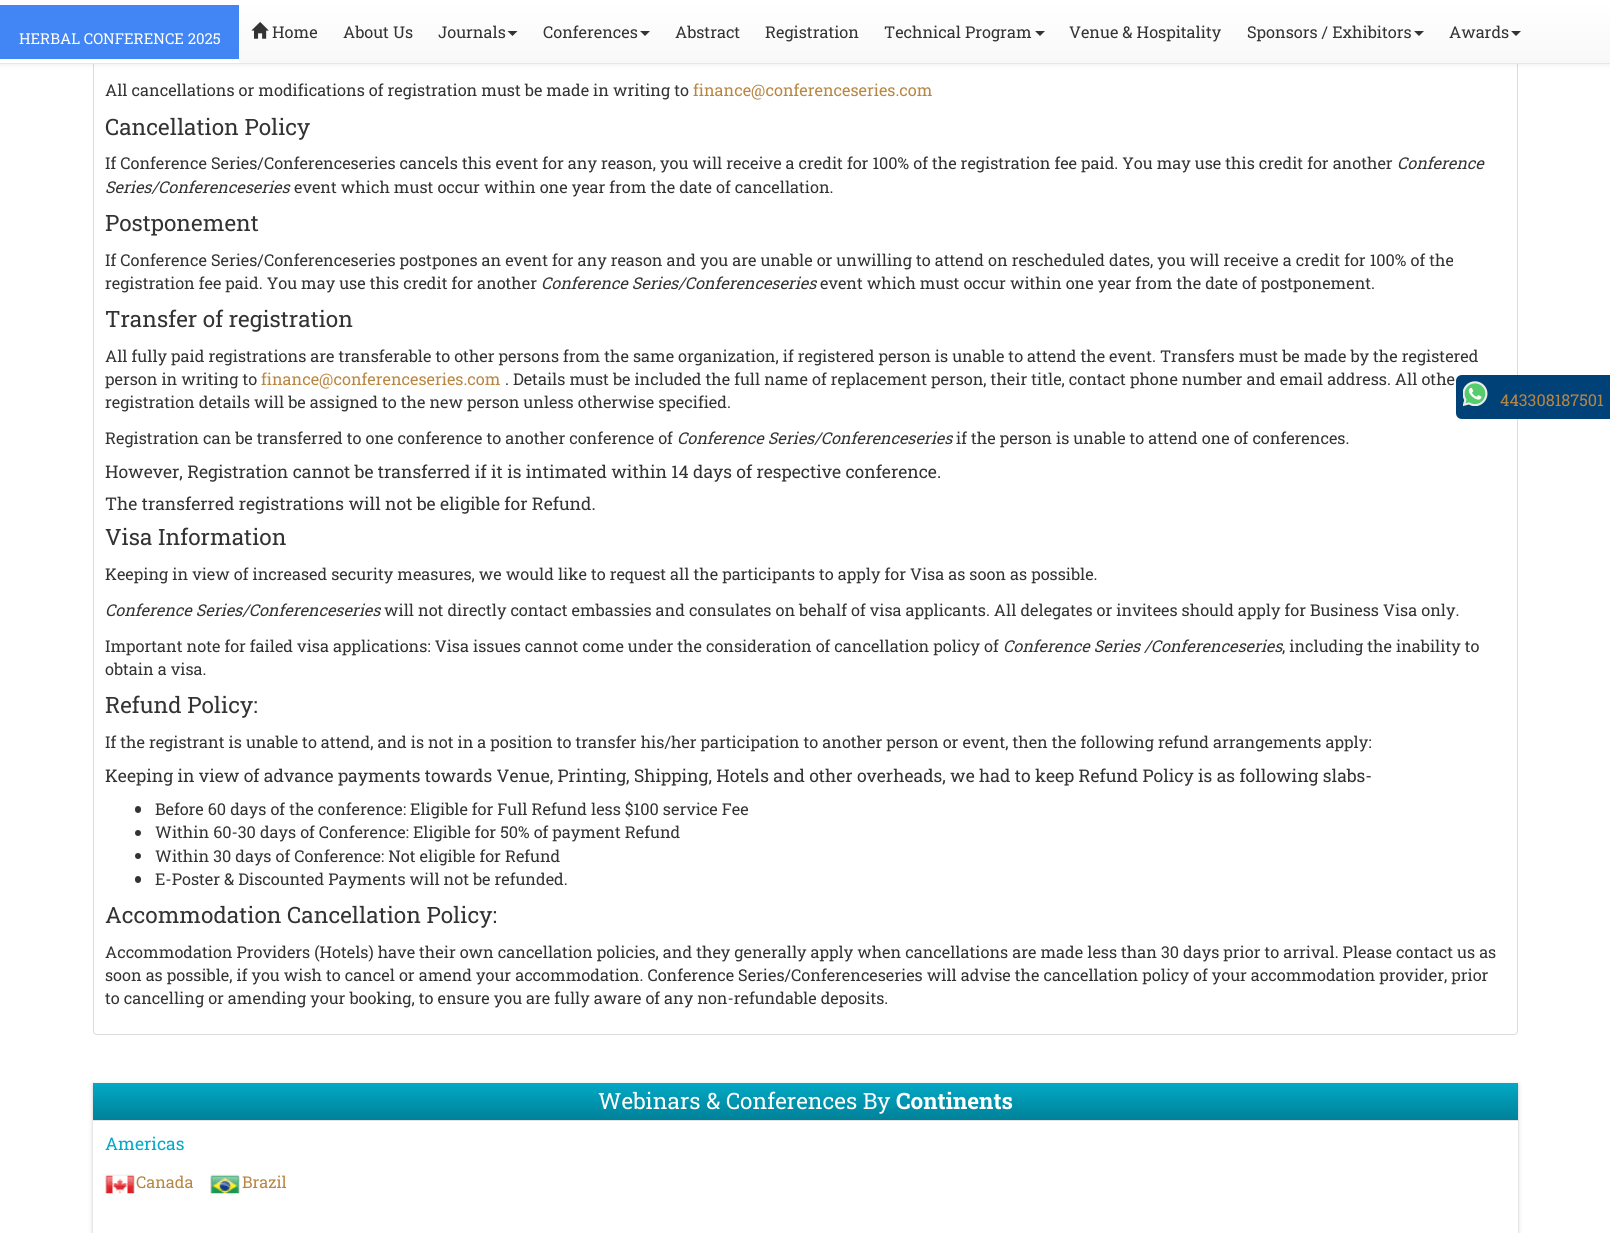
import math
import cairo

surface = cairo.ImageSurface(cairo.Format.RGB24, 1610, 1233)
ctx = cairo.Context(surface)
options = cairo.FontOptions()
options.set_hint_metrics(cairo.HintMetrics.OFF)
options.set_hint_style(cairo.HintStyle.NONE)
ctx.set_font_options(options)
ctx.set_miter_limit(4)


def ink(r, g, b):
    ctx.set_source_rgb(r / 255, g / 255, b / 255)


def write(x, y, s, family, size, color, bold=False, italic=False):
    ctx.select_font_face(family, cairo.FontSlant.ITALIC if italic else cairo.FontSlant.NORMAL, cairo.FontWeight.BOLD if bold else cairo.FontWeight.NORMAL)
    ctx.set_font_size(size)
    ink(*color)
    ctx.move_to(x, y)
    ctx.show_text(s)


def block(x, y, w, h, *color):
    ink(*color)
    ctx.rectangle(x, y, w, h)
    ctx.fill()


def round_path(x, y, w, h, r):
    ctx.new_sub_path()
    for i, (u, v) in enumerate([(x + w - r, y + h - r), (x + r, y + h - r), (x + r, y + r), (x + w - r, y + r)]):
        ctx.arc(u, v, r, i * math.pi / 2, (i + 1) * math.pi / 2)
    ctx.close_path()


def blur_box(x, y, w, h, r, blur, alpha):
    ctx.push_group_with_content(cairo.Content.ALPHA)
    ctx.set_operator(cairo.Operator.SOURCE)
    for i in range(15, -16, -2):
        e = blur * i / 6
        if min(w, h) + 2 * e > 0:
            ctx.set_source_rgba(0, 0, 0, alpha * math.erfc((i - 1) / 8.5) / 2)
            round_path(x - e, y - e, w + 2 * e, h + 2 * e, max(0, min(r + e + blur * .6, min(w, h) / 2 + e)))
            ctx.fill()
    ctx.mask(ctx.pop_group())


def paste(path, x, y, w, h):
    ctx.save()
    ctx.set_source_surface(cairo.ImageSurface.create_from_png(path), x, y)
    ctx.rectangle(x, y, w, h)
    ctx.fill()
    ctx.restore()


s1 = dict(family="Roboto Slab", size=15, color=(255, 255, 255))
s2 = dict(family="Roboto Slab", size=16.25, color=(51, 51, 51))
s3 = dict(family="Roboto Slab", size=16.25, color=(185, 134, 66))
s4 = dict(family="Roboto Slab", size=22.5, color=(51, 51, 51))
s5 = dict(family="Roboto Slab", size=16.25, color=(51, 51, 51), italic=True)
s6 = dict(family="Roboto Slab", size=17.5, color=(51, 51, 51))
s7 = dict(family="Roboto Slab", size=22.5, color=(255, 255, 255))
s8 = dict(family="Roboto Slab", size=22.5, color=(255, 255, 255), bold=True)
s9 = dict(family="Roboto Slab", size=17.5, color=(1, 170, 199))

ink(255, 255, 255)
ctx.paint()
round_path(93.5, -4.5, 1424, 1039, 3.5)
ink(220, 220, 220)
ctx.set_line_width(1)
ctx.stroke()
ink(0, 0, 0)
blur_box(0, 1, 1610, 64, 0, 3, 0.07)
gradient = cairo.LinearGradient(805, 0, 805, 63)
gradient.add_color_stop_rgba(0, 1, 1, 1, 1)
gradient.add_color_stop_rgba(1, 0.973, 0.973, 0.973, 1)
ctx.set_source(gradient)
ctx.rectangle(239, 0, 1371, 63)
ctx.fill()
block(0, 63, 1610, 1, 231, 231, 231)
block(0, 0, 239, 63, 255, 255, 255)
block(0, 5, 239, 54, 66, 133, 244)
write(19, 44, "HERBAL CONFERENCE 2025", **s1)
paste("pic1.png", 251, 22, 18, 17)
write(272, 38, "Home", **s2)
write(343, 38, "About Us", **s2)
write(438, 38, "Journals", **s2)
ctx.new_path()
ctx.move_to(507.5, 31)
ctx.line_to(517.5, 31)
ctx.line_to(512.5, 36)
ctx.close_path()
ctx.fill()
write(543, 38, "Conferences", **s2)
ctx.new_path()
ctx.move_to(640, 31)
ctx.line_to(650, 31)
ctx.line_to(645, 36)
ctx.close_path()
ctx.fill()
write(675, 38, "Abstract", **s2)
write(765, 38, "Registration", **s2)
write(884, 38, "Technical Program", **s2)
ctx.new_path()
ctx.move_to(1035, 31)
ctx.line_to(1045, 31)
ctx.line_to(1040, 36)
ctx.close_path()
ctx.fill()
write(1069, 38, "Venue & Hospitality", **s2)
write(1247, 38, "Sponsors / Exhibitors", **s2)
ctx.new_path()
ctx.move_to(1414, 31)
ctx.line_to(1424, 31)
ctx.line_to(1419, 36)
ctx.close_path()
ctx.fill()
write(1449, 38, "Awards", **s2)
ctx.new_path()
ctx.move_to(1511, 31)
ctx.line_to(1521, 31)
ctx.line_to(1516, 36)
ctx.close_path()
ctx.fill()
write(105, 96, "All cancellations or modifications of registration must be made in writing to", **s2)
write(693, 96, "finance@conferenceseries.com", **s3)
write(105, 135, "Cancellation Policy", **s4)
write(105, 169, "If Conference Series/Conferenceseries cancels this event for any reason, you will receive a credit for 100% of the registration fee paid. You may use this credit for another", **s2)
write(1397, 169, "Conference", **s5)
write(105, 193, "Series/Conferenceseries", **s5)
write(294, 193, "event which must occur within one year from the date of cancellation.", **s2)
write(105, 231, "Postponement", **s4)
write(105, 266, "If Conference Series/Conferenceseries postpones an event for any reason and you are unable or unwilling to attend on rescheduled dates, you will receive a credit for 100% of the", **s2)
write(105, 289, "registration fee paid. You may use this credit for another", **s2)
write(541, 289, "Conference Series/Conferenceseries", **s5)
write(820, 289, "event which must occur within one year from the date of postponement.", **s2)
write(105, 327, "Transfer of registration", **s4)
write(105, 362, "All fully paid registrations are transferable to other persons from the same organization, if registered person is unable to attend the event. Transfers must be made by the registered", **s2)
write(105, 385, "person in writing to", **s2)
write(261, 385, "finance@conferenceseries.com", **s3)
write(505, 385, ". Details must be included the full name of replacement person, their title, contact phone number and email address. All othe", **s2)
write(105, 408, "registration details will be assigned to the new person unless otherwise specified.", **s2)
write(105, 444, "Registration can be transferred to one conference to another conference of", **s2)
write(677, 444, "Conference Series/Conferenceseries", **s5)
write(956, 444, "if the person is unable to attend one of conferences.", **s2)
write(105, 478, "However, Registration cannot be transferred if it is intimated within 14 days of respective conference.", **s6)
write(105, 510, "The transferred registrations will not be eligible for Refund.", **s6)
write(105, 545, "Visa Information", **s4)
write(105, 580, "Keeping in view of increased security measures, we would like to request all the participants to apply for Visa as soon as possible.", **s2)
write(105, 616, "Conference Series/Conferenceseries", **s5)
write(384, 616, "will not directly contact embassies and consulates on behalf of visa applicants. All delegates or invitees should apply for Business Visa only.", **s2)
write(105, 652, "Important note for failed visa applications: Visa issues cannot come under the consideration of cancellation policy of", **s2)
write(1003, 652, "Conference Series /Conferenceseries", **s5)
write(1282, 652, ", including the inability to", **s2)
write(105, 675, "obtain a visa.", **s2)
write(105, 713, "Refund Policy:", **s4)
write(105, 748, "If the registrant is unable to attend, and is not in a position to transfer his/her participation to another person or event, then the following refund arrangements apply:", **s2)
write(105, 782, "Keeping in view of advance payments towards Venue, Printing, Shipping, Hotels and other overheads, we had to keep Refund Policy is as following slabs-", **s6)
round_path(135, 806, 6, 7, 3)
ctx.fill()
write(155, 815, "Before 60 days of the conference: Eligible for Full Refund less $100 service Fee", **s2)
ctx.new_path()
ctx.arc(138, 833, 3, 0, 2 * math.pi)
ctx.fill()
write(155, 838, "Within 60-30 days of Conference: Eligible for 50% of payment Refund", **s2)
ctx.new_path()
ctx.arc(138, 856, 3, 0, 2 * math.pi)
ctx.fill()
write(155, 862, "Within 30 days of Conference: Not eligible for Refund", **s2)
round_path(135, 876, 6, 7, 3)
ctx.fill()
write(155, 885, "E-Poster & Discounted Payments will not be refunded.", **s2)
write(105, 923, "Accommodation Cancellation Policy:", **s4)
write(105, 958, "Accommodation Providers (Hotels) have their own cancellation policies, and they generally apply when cancellations are made less than 30 days prior to arrival. Please contact us as", **s2)
write(105, 981, "soon as possible, if you wish to cancel or amend your accommodation. Conference Series/Conferenceseries will advise the cancellation policy of your accommodation provider, prior", **s2)
write(105, 1004, "to cancelling or amending your booking, to ensure you are fully aware of any non-refundable deposits.", **s2)
ink(0, 65, 120)
ctx.new_path()
ctx.move_to(1462, 375)
ctx.line_to(1610, 375)
ctx.line_to(1610, 419)
ctx.line_to(1462, 419)
ctx.curve_to(1458.5, 419, 1456, 416.5, 1456, 413)
ctx.line_to(1456, 381)
ctx.curve_to(1456, 377.5, 1458.5, 375, 1462, 375)
ctx.close_path()
ctx.fill()
paste("pic2.png", 1463, 381, 25, 25)
write(1500, 406, "443308187501", **s3)
ctx.save()
ctx.set_fill_rule(cairo.FillRule.EVEN_ODD)
ctx.new_path()
ctx.move_to(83, 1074)
ctx.line_to(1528, 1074)
ctx.line_to(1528, 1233)
ctx.line_to(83, 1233)
ctx.close_path()
ctx.move_to(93, 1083)
ctx.line_to(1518, 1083)
ctx.line_to(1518, 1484)
ctx.line_to(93, 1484)
ctx.close_path()
ctx.clip()
ink(0, 0, 0)
blur_box(93, 1084, 1425, 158, 0, 3, 0.12)
ctx.restore()
ctx.save()
ctx.set_fill_rule(cairo.FillRule.EVEN_ODD)
ctx.new_path()
ctx.move_to(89, 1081)
ctx.line_to(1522, 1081)
ctx.line_to(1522, 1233)
ctx.line_to(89, 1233)
ctx.close_path()
ctx.move_to(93, 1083)
ctx.line_to(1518, 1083)
ctx.line_to(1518, 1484)
ctx.line_to(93, 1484)
ctx.close_path()
ctx.clip()
ink(0, 0, 0)
blur_box(93, 1085, 1425, 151, 0, 1, 0.14)
ctx.restore()
gradient = cairo.LinearGradient(805, 1082, 805, 1120)
gradient.add_color_stop_rgba(0, 0.004, 0.667, 0.78, 1)
gradient.add_color_stop_rgba(1, 0, 0.506, 0.596, 1)
ctx.set_source(gradient)
ctx.rectangle(93, 1083, 1425, 37)
ctx.fill()
block(93, 1120, 1425, 1, 227, 227, 227)
write(598, 1109, "Webinars & Conferences By", **s7)
write(896, 1109, "Continents", **s8)
write(105, 1150, "Americas", **s9)
paste("pic3.png", 105, 1174, 30, 20)
write(136, 1188, "Canada", **s3)
paste("pic4.png", 210, 1174, 30, 20)
write(242, 1188, "Brazil", **s3)
surface.write_to_png("screenshot.png")
